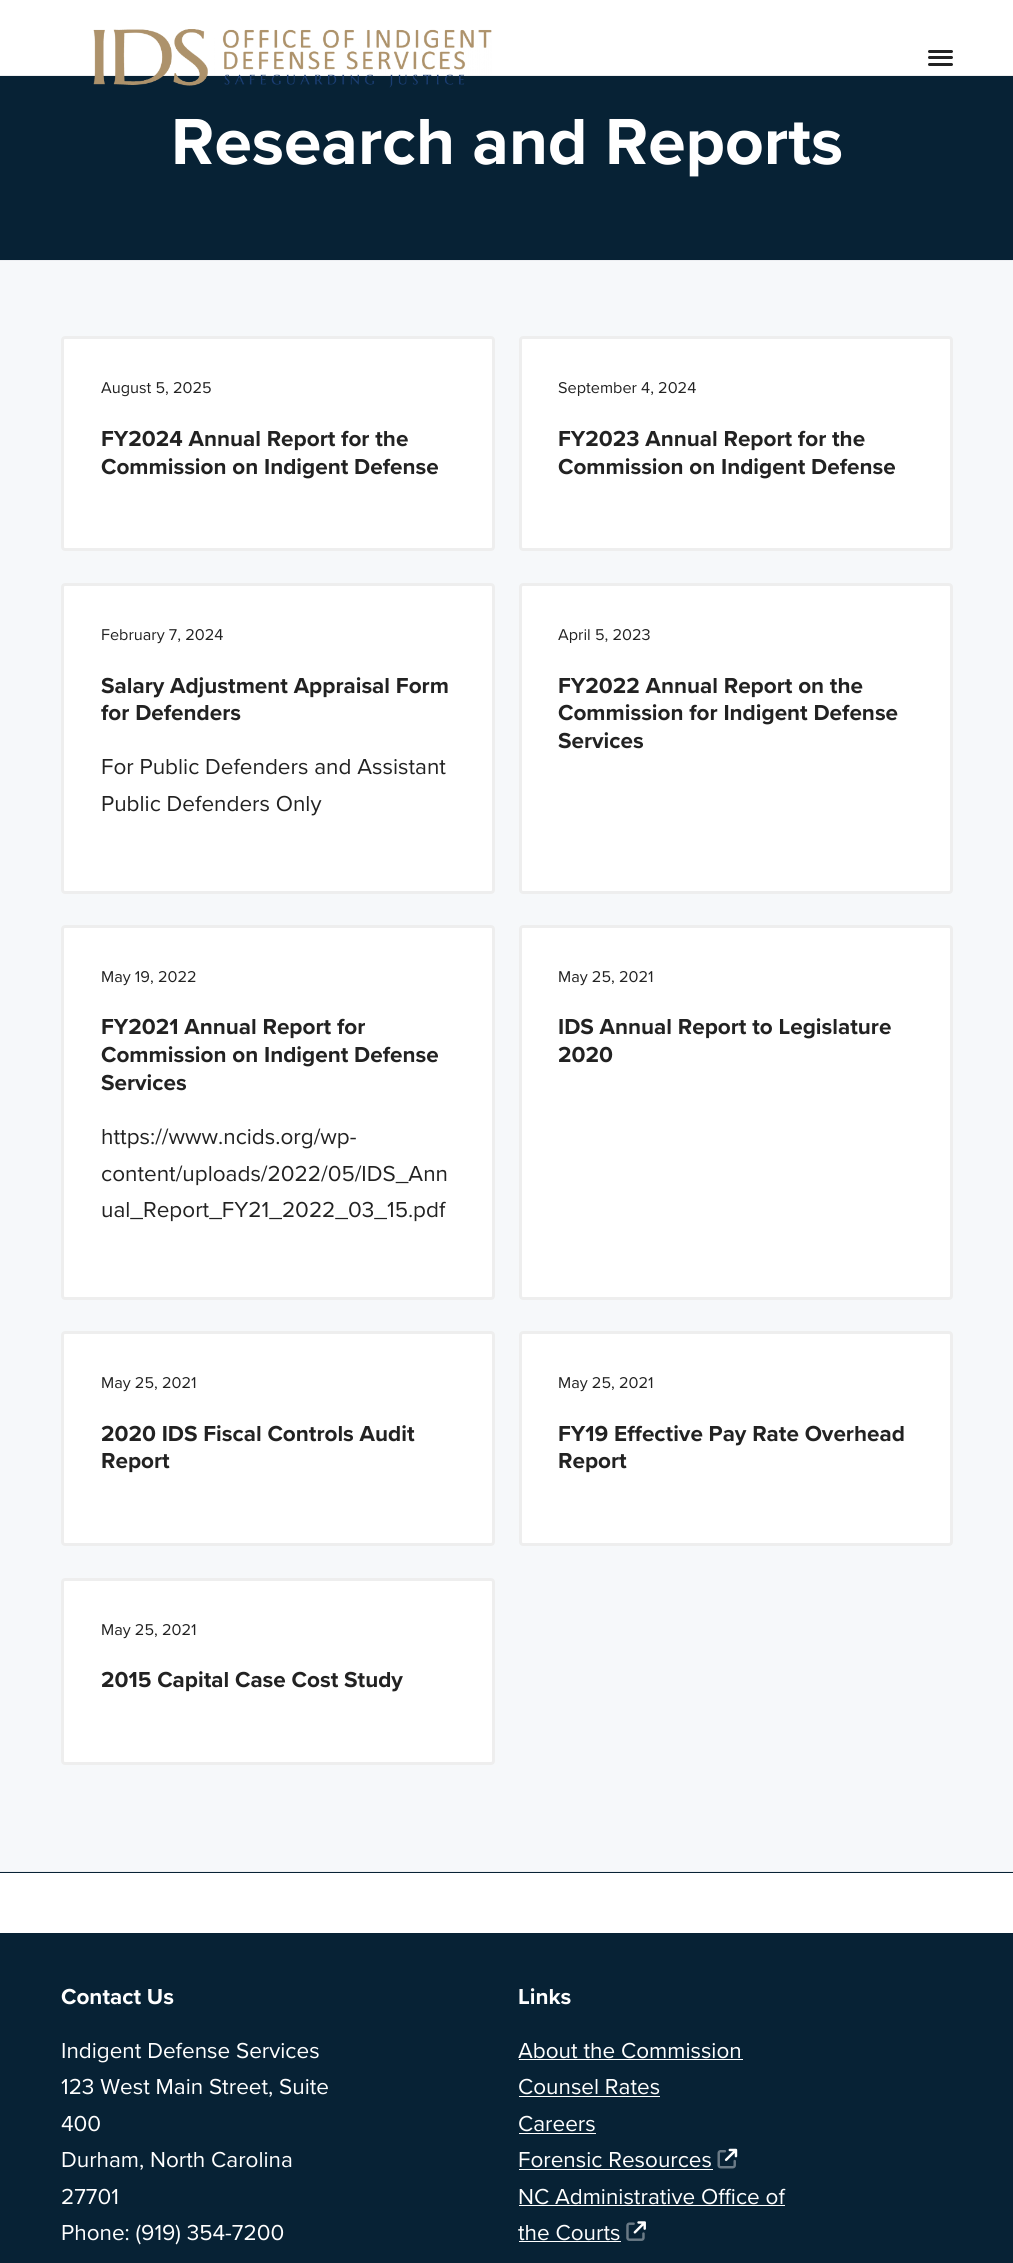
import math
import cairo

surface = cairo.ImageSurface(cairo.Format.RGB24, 1013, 2263)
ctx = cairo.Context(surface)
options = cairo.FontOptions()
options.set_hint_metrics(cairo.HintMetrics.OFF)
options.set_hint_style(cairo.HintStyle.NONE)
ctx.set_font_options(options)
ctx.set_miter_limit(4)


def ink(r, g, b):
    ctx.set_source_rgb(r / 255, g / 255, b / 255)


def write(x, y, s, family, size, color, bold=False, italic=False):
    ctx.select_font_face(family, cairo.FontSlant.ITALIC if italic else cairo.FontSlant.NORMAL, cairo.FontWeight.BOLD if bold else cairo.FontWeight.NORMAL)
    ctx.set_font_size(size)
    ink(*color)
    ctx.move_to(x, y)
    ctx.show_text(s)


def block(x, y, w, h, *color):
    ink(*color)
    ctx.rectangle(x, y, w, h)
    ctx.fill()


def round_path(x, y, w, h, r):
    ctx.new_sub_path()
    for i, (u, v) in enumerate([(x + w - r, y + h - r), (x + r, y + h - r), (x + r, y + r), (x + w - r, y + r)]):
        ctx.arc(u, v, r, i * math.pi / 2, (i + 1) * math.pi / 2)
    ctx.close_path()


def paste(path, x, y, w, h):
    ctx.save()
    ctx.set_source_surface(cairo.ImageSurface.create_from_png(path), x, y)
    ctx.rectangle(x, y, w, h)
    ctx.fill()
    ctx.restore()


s1 = dict(family="Proxima Nova", size=67.5, color=(255, 255, 255), bold=True)
s2 = dict(family="Proxima Nova", size=16.25, color=(34, 34, 34))
s3 = dict(family="Proxima Nova", size=22.5, color=(34, 34, 34), bold=True)
s4 = dict(family="Proxima Nova", size=22.5, color=(34, 34, 34))
s5 = dict(family="Proxima Nova", size=22.5, color=(255, 255, 255), bold=True)
s6 = dict(family="Proxima Nova", size=22.5, color=(255, 255, 255))

ink(246, 248, 250)
ctx.paint()
block(0, 0, 1013, 75, 255, 255, 255)
block(0, 75, 1013, 1, 238, 239, 240)
block(0, 76, 1013, 184, 7, 34, 53)
paste("pic1.png", 93, 29, 399, 59)
ink(34, 34, 34)
round_path(928, 56, 25, 3, 1.5)
ctx.fill()
round_path(928, 50, 25, 3, 1.5)
ctx.fill()
round_path(928, 63, 25, 3, 1.5)
ctx.fill()
block(0, 260, 1013, 1, 236, 238, 241)
write(171, 164, "Research and Reports", **s1)
round_path(62.5, 337.5, 431, 212, 2.5)
ctx.fill_preserve()
ink(238, 238, 238)
ctx.set_line_width(3)
ctx.stroke()
write(101, 393, "August 5, 2025", **s2)
write(101, 446, "FY2024 Annual Report for the", **s3)
write(101, 474, "Commission on Indigent Defense", **s3)
ink(255, 255, 255)
round_path(520.5, 337.5, 431, 212, 2.5)
ctx.fill_preserve()
ink(238, 238, 238)
ctx.stroke()
write(558, 393, "September 4, 2024", **s2)
write(558, 446, "FY2023 Annual Report for the", **s3)
write(558, 474, "Commission on Indigent Defense", **s3)
ink(255, 255, 255)
round_path(62.5, 584.5, 431, 308, 2.5)
ctx.fill_preserve()
ink(238, 238, 238)
ctx.stroke()
write(101, 640, "February 7, 2024", **s2)
write(101, 693, "Salary Adjustment Appraisal Form", **s3)
write(101, 720, "for Defenders", **s3)
write(101, 774, "For Public Defenders and Assistant", **s4)
write(101, 811, "Public Defenders Only", **s4)
ink(255, 255, 255)
round_path(520.5, 584.5, 431, 308, 2.5)
ctx.fill_preserve()
ink(238, 238, 238)
ctx.stroke()
write(558, 640, "April 5, 2023", **s2)
write(558, 693, "FY2022 Annual Report on the", **s3)
write(558, 720, "Commission for Indigent Defense", **s3)
write(558, 748, "Services", **s3)
ink(255, 255, 255)
round_path(62.5, 926.5, 431, 372, 2.5)
ctx.fill_preserve()
ink(238, 238, 238)
ctx.stroke()
write(101, 982, "May 19, 2022", **s2)
write(101, 1034, "FY2021 Annual Report for", **s3)
write(101, 1062, "Commission on Indigent Defense", **s3)
write(101, 1090, "Services", **s3)
write(101, 1144, "https://www.ncids.org/wp-", **s4)
write(101, 1181, "content/uploads/2022/05/IDS_Ann", **s4)
write(101, 1217, "ual_Report_FY21_2022_03_15.pdf", **s4)
ink(255, 255, 255)
round_path(520.5, 926.5, 431, 372, 2.5)
ctx.fill_preserve()
ink(238, 238, 238)
ctx.stroke()
write(558, 982, "May 25, 2021", **s2)
write(558, 1034, "IDS Annual Report to Legislature", **s3)
write(558, 1062, "2020", **s3)
ink(255, 255, 255)
round_path(62.5, 1332.5, 431, 212, 2.5)
ctx.fill_preserve()
ink(238, 238, 238)
ctx.stroke()
write(101, 1388, "May 25, 2021", **s2)
write(101, 1441, "2020 IDS Fiscal Controls Audit", **s3)
write(101, 1468, "Report", **s3)
ink(255, 255, 255)
round_path(520.5, 1332.5, 431, 212, 2.5)
ctx.fill_preserve()
ink(238, 238, 238)
ctx.stroke()
write(558, 1388, "May 25, 2021", **s2)
write(558, 1441, "FY19 Effective Pay Rate Overhead", **s3)
write(558, 1468, "Report", **s3)
ink(255, 255, 255)
round_path(62.5, 1579.5, 431, 184, 2.5)
ctx.fill_preserve()
ink(238, 238, 238)
ctx.stroke()
write(101, 1635, "May 25, 2021", **s2)
write(101, 1687, "2015 Capital Case Cost Study", **s3)
block(0, 1872, 1013, 391, 7, 34, 53)
block(0, 1871, 1013, 1, 236, 238, 241)
block(0, 1873, 1013, 60, 255, 255, 255)
write(61, 2004, "Contact Us", **s5)
write(61, 2058, "Indigent Defense Services", **s6)
write(61, 2094, "123 West Main Street, Suite", **s6)
write(61, 2131, "400", **s6)
write(61, 2167, "Durham, North Carolina", **s6)
write(61, 2204, "27701", **s6)
write(61, 2240, "Phone: (919) 354-7200", **s6)
write(518, 2004, "Links", **s5)
write(518, 2058, "About the Commission", **s6)
block(519, 2059, 224, 1, 255, 255, 255)
write(518, 2094, "Counsel Rates", **s6)
block(519, 2096, 141, 1, 255, 255, 255)
write(518, 2131, "Careers", **s6)
block(519, 2133, 77, 1, 255, 255, 255)
write(518, 2167, "Forensic Resources", **s6)
block(519, 2169, 194, 1, 255, 255, 255)
paste("pic2.png", 717, 2148, 21, 21)
write(518, 2204, "NC Administrative Office of", **s6)
block(519, 2205, 266, 1, 255, 255, 255)
write(518, 2240, "the Courts", **s6)
block(519, 2241, 102, 1, 255, 255, 255)
paste("pic3.png", 626, 2221, 20, 20)
surface.write_to_png("screenshot.png")
